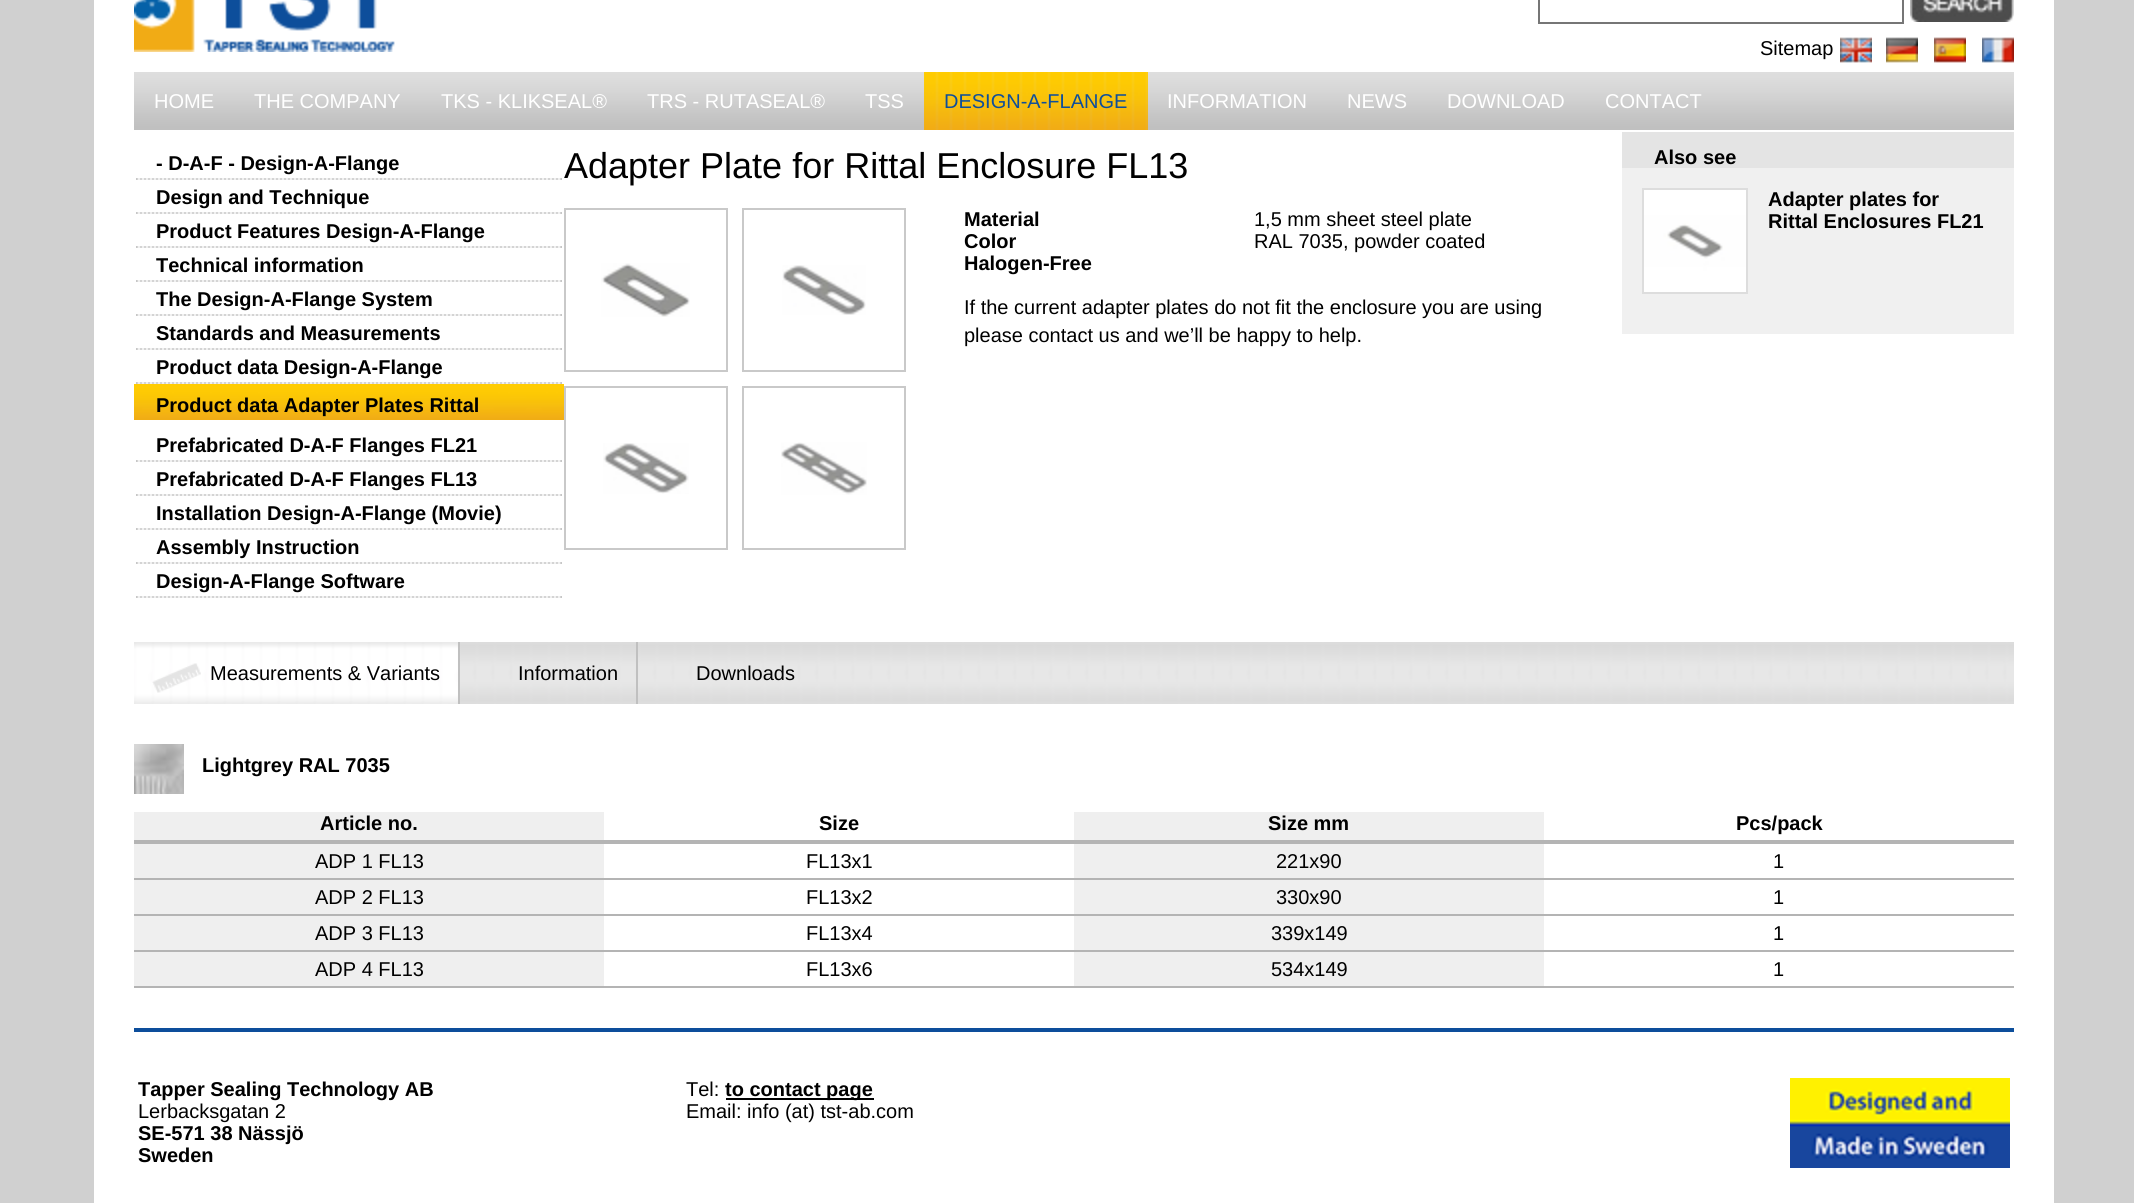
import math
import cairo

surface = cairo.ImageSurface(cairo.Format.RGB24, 2134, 1203)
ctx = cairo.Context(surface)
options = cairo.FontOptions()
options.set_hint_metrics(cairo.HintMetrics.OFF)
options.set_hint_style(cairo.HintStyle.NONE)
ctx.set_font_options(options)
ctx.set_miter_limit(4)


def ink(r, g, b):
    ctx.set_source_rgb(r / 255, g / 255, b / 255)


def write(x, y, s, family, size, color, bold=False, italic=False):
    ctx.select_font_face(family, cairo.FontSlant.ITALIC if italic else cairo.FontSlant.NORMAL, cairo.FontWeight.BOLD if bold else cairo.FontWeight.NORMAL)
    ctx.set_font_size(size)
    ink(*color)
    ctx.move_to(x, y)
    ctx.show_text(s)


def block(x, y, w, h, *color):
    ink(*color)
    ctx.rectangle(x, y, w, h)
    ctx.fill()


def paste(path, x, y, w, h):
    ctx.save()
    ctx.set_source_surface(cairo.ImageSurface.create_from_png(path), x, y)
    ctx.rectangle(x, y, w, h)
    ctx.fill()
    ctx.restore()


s1 = dict(family="Liberation Sans", size=20, color=(0, 0, 0))
s2 = dict(family="Liberation Sans", size=20, color=(255, 255, 255))
s3 = dict(family="Liberation Sans", size=20, color=(13, 78, 155))
s4 = dict(family="Liberation Sans", size=36, color=(0, 0, 0))
s5 = dict(family="Liberation Sans", size=20, color=(0, 0, 0), bold=True)

ink(208, 208, 208)
ctx.paint()
block(94, 0, 1960, 1203, 255, 255, 255)
paste("pic1.png", 134, 0, 261, 52)
ctx.rectangle(1539, -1, 364, 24)
ink(118, 118, 118)
ctx.stroke()
paste("pic2.png", 1910, 0, 104, 22)
write(1760, 55, "Sitemap", **s1)
paste("pic3.png", 1840, 37, 32, 26)
paste("pic4.png", 1886, 37, 32, 26)
paste("pic5.png", 1934, 37, 32, 26)
paste("pic6.png", 1982, 37, 32, 26)
paste("pic7.png", 134, 72, 1880, 58)
write(154, 108, "HOME", **s2)
write(254, 108, "THE COMPANY", **s2)
write(441, 108, "TKS - KLIKSEAL®", **s2)
write(647, 108, "TRS - RUTASEAL®", **s2)
write(865, 108, "TSS", **s2)
paste("pic8.png", 924, 72, 224, 58)
write(944, 108, "DESIGN-A-FLANGE", **s3)
write(1167, 108, "INFORMATION", **s2)
write(1347, 108, "NEWS", **s2)
write(1447, 108, "DOWNLOAD", **s2)
write(1605, 108, "CONTACT", **s2)
write(564, 178, "Adapter Plate for Rittal Enclosure FL13", **s4)
ctx.rectangle(565, 209, 162, 162)
ink(201, 201, 201)
ctx.stroke()
paste("pic9.png", 601, 263, 89, 54)
ctx.rectangle(743, 209, 162, 162)
ctx.stroke()
paste("pic10.png", 782, 265, 84, 50)
ctx.rectangle(565, 387, 162, 162)
ctx.stroke()
paste("pic11.png", 603, 443, 86, 51)
ctx.rectangle(743, 387, 162, 162)
ctx.stroke()
paste("pic12.png", 781, 442, 86, 53)
write(964, 226, "Material", **s5)
write(1254, 226, "1,5 mm sheet steel plate", **s1)
write(964, 248, "Color", **s5)
write(1254, 248, "RAL 7035, powder coated", **s1)
write(964, 270, "Halogen-Free", **s5)
write(964, 314, "If the current adapter plates do not fit the enclosure you are using", **s1)
write(964, 342, "please contact us and we’ll be happy to help.", **s1)
block(1622, 132, 392, 36, 228, 228, 228)
write(1654, 164, "Also see", **s5)
block(1622, 168, 392, 166, 240, 240, 240)
ctx.rectangle(1643, 189, 104, 104)
ink(221, 221, 221)
ctx.stroke()
paste("pic13.png", 1644, 190, 102, 102)
write(1768, 206, "Adapter plates for", **s5)
write(1768, 228, "Rittal Enclosures FL21", **s5)
paste("pic14.png", 460, 642, 1554, 62)
paste("pic15.png", 134, 642, 324, 62)
paste("pic16.png", 152, 663, 49, 30)
write(210, 680, "Measurements & Variants", **s1)
block(458, 642, 2, 62, 192, 192, 192)
write(518, 680, "Information", **s1)
block(636, 642, 2, 62, 192, 192, 192)
write(696, 680, "Downloads", **s1)
paste("pic17.png", 134, 744, 50, 50)
write(202, 772, "Lightgrey RAL 7035", **s5)
block(134, 812, 470, 28, 239, 239, 239)
block(134, 840, 1880, 4, 180, 180, 180)
write(320, 830, "Article no.", **s5)
write(819, 830, "Size", **s5)
block(1074, 812, 470, 28, 239, 239, 239)
write(1268, 830, "Size mm", **s5)
write(1736, 830, "Pcs/pack", **s5)
block(134, 844, 470, 34, 239, 239, 239)
block(134, 878, 1880, 2, 180, 180, 180)
write(315, 868, "ADP 1 FL13", **s1)
write(806, 868, "FL13x1", **s1)
block(1074, 844, 470, 34, 239, 239, 239)
write(1276, 868, "221x90", **s1)
write(1773, 868, "1", **s1)
block(134, 880, 470, 34, 239, 239, 239)
block(134, 914, 1880, 2, 180, 180, 180)
write(315, 904, "ADP 2 FL13", **s1)
write(806, 904, "FL13x2", **s1)
block(1074, 880, 470, 34, 239, 239, 239)
write(1276, 904, "330x90", **s1)
write(1773, 904, "1", **s1)
block(134, 916, 470, 34, 239, 239, 239)
block(134, 950, 1880, 2, 180, 180, 180)
write(315, 940, "ADP 3 FL13", **s1)
write(806, 940, "FL13x4", **s1)
block(1074, 916, 470, 34, 239, 239, 239)
write(1271, 940, "339x149", **s1)
write(1773, 940, "1", **s1)
block(134, 952, 470, 34, 239, 239, 239)
block(134, 986, 1880, 2, 180, 180, 180)
write(315, 976, "ADP 4 FL13", **s1)
write(806, 976, "FL13x6", **s1)
block(1074, 952, 470, 34, 239, 239, 239)
write(1271, 976, "534x149", **s1)
write(1773, 976, "1", **s1)
paste("pic18.png", 136, 178, 426, 2)
write(156, 170, "- D-A-F - Design-A-Flange", **s5)
paste("pic18.png", 136, 212, 426, 2)
write(156, 204, "Design and Technique", **s5)
paste("pic18.png", 136, 246, 426, 2)
write(156, 238, "Product Features Design-A-Flange", **s5)
paste("pic18.png", 136, 280, 426, 2)
write(156, 272, "Technical information", **s5)
paste("pic18.png", 136, 314, 426, 2)
write(156, 306, "The Design-A-Flange System", **s5)
paste("pic18.png", 136, 348, 426, 2)
write(156, 340, "Standards and Measurements", **s5)
paste("pic18.png", 136, 382, 426, 2)
write(156, 374, "Product data Design-A-Flange", **s5)
paste("pic19.png", 134, 384, 430, 36)
write(156, 412, "Product data Adapter Plates Rittal", **s5)
paste("pic18.png", 136, 460, 426, 2)
write(156, 452, "Prefabricated D-A-F Flanges FL21", **s5)
paste("pic18.png", 136, 494, 426, 2)
write(156, 486, "Prefabricated D-A-F Flanges FL13", **s5)
paste("pic18.png", 136, 528, 426, 2)
write(156, 520, "Installation Design-A-Flange (Movie)", **s5)
paste("pic18.png", 136, 562, 426, 2)
write(156, 554, "Assembly Instruction", **s5)
paste("pic18.png", 136, 596, 426, 2)
write(156, 588, "Design-A-Flange Software", **s5)
block(134, 1028, 1880, 4, 13, 78, 155)
write(138, 1096, "Tapper Sealing Technology AB", **s5)
write(138, 1118, "Lerbacksgatan 2", **s1)
write(138, 1140, "SE-571 38 Nässjö", **s5)
write(138, 1162, "Sweden", **s5)
write(686, 1096, "Tel:", **s1)
block(726, 1098, 148, 2, 0, 0, 0)
write(725, 1096, "to contact page", **s5)
write(686, 1118, "Email: info (at) tst-ab.com", **s1)
paste("pic20.png", 1790, 1078, 220, 90)
surface.write_to_png("screenshot.png")
